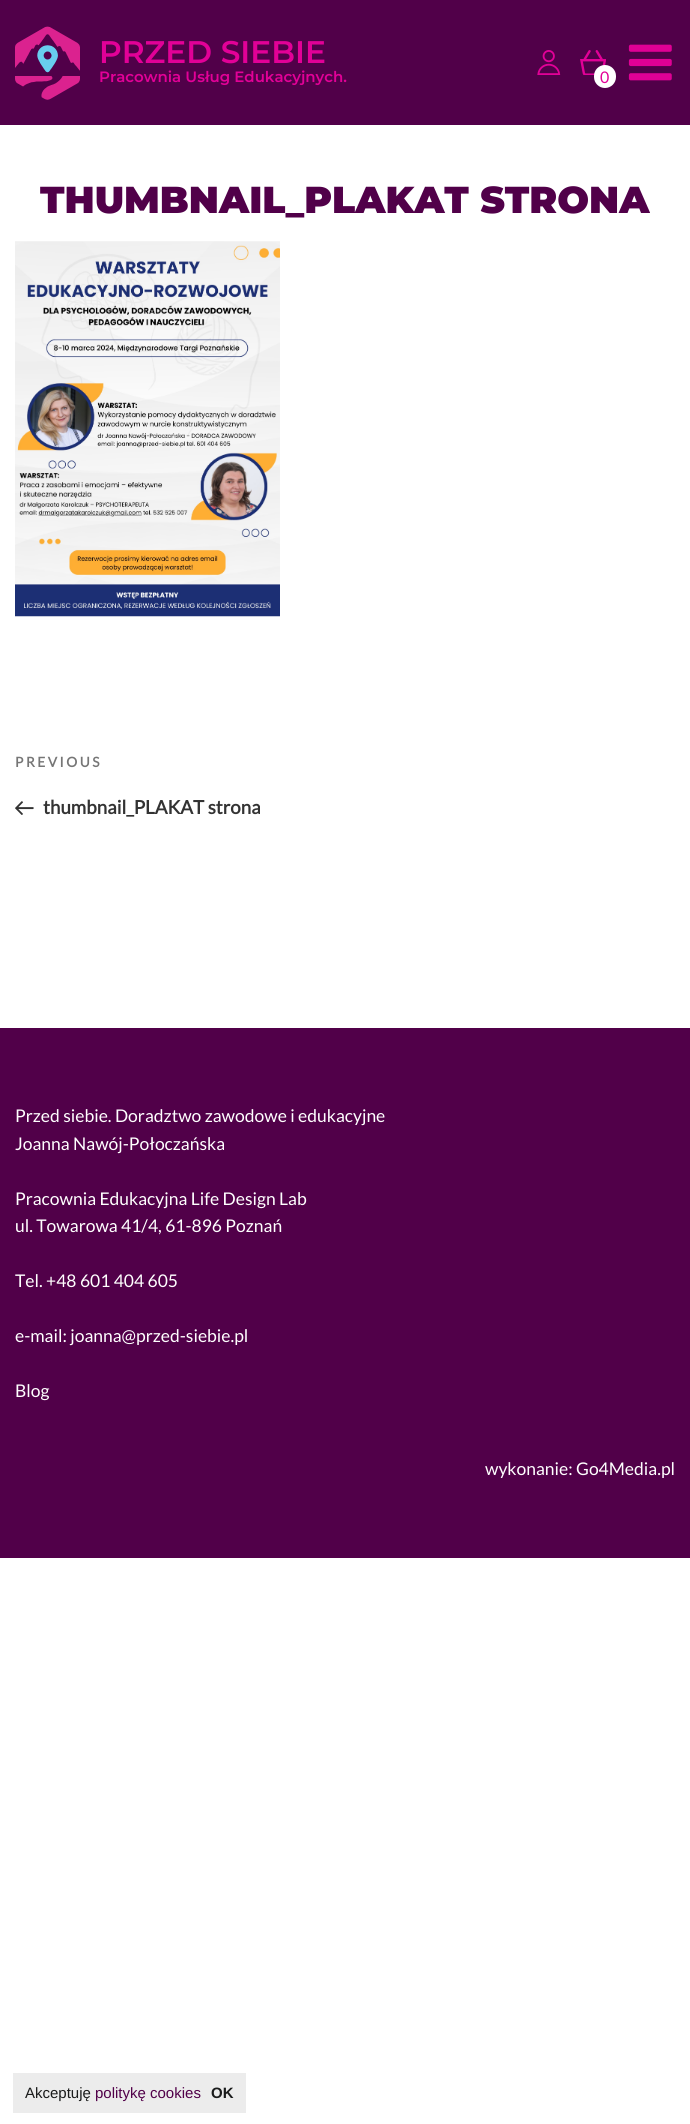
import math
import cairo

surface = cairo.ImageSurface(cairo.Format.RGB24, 690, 2124)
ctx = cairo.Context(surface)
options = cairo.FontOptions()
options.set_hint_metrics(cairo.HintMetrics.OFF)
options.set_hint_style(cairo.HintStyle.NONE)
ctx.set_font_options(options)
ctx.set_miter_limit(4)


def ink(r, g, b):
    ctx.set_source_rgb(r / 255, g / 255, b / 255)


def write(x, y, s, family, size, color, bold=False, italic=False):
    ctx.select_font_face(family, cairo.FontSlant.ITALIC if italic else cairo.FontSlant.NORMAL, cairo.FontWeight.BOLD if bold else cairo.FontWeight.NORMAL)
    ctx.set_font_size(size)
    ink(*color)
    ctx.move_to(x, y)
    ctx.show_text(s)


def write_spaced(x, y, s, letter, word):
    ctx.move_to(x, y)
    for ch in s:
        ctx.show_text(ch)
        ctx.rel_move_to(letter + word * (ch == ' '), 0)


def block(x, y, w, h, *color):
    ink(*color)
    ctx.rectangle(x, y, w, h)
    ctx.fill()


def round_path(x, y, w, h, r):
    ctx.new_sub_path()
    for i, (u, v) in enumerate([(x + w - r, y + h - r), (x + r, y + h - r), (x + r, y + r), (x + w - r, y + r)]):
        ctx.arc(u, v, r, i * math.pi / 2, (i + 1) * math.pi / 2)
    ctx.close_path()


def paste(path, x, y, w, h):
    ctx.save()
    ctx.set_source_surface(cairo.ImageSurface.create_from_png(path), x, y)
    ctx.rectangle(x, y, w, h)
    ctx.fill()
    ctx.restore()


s1 = dict(family="Montserrat SemiBold", size=31.25, color=(226, 0, 151))
s2 = dict(family="Montserrat SemiBold", size=15, color=(226, 0, 151))
s3 = dict(family="Lato", size=16, color=(226, 0, 151))
s4 = dict(family="Montserrat Black", size=37.5, color=(81, 0, 73))
s5 = dict(family="Lato", size=18.75, color=(51, 51, 51), bold=True)
s6 = dict(family="Lato", size=17.5, color=(255, 255, 255))
s7 = dict(family="Liberation Sans", size=15, color=(26, 27, 27))
s8 = dict(family="Liberation Sans", size=15, color=(81, 0, 73))
s9 = dict(family="Liberation Sans", size=15, color=(26, 27, 27), bold=True)

ink(255, 255, 255)
ctx.paint()
block(0, 0, 690, 125, 81, 0, 73)
paste("pic1.png", 15, 26, 65, 74)
write(99, 63, "PRZED SIEBIE", **s1)
write(99, 82, "Pracownia Usług Edukacyjnych.", **s2)
paste("pic2.png", 537, 50, 24, 25)
paste("pic3.png", 628, 44, 44, 37)
paste("pic4.png", 580, 50, 26, 25)
ink(255, 255, 255)
round_path(594, 65, 22, 23, 11)
ctx.fill()
write(600, 83, "0", **s3)
write(40, 213, "THUMBNAIL_PLAKAT STRONA", **s4)
paste("pic5.png", 15, 241, 265, 376)
ctx.select_font_face("Lato", cairo.FontSlant.NORMAL, cairo.FontWeight.BOLD)
ctx.set_font_size(13.75)
ink(118, 118, 118)
write_spaced(15, 767, "PREVIOUS", 2.5, 0)
paste("pic6.png", 15, 801, 19, 14)
write(43, 814, "thumbnail_PLAKAT strona", **s5)
block(0, 1028, 690, 530, 81, 0, 73)
write(15, 1122, "Przed siebie. Doradztwo zawodowe i edukacyjne", **s6)
write(15, 1150, "Joanna Nawój-Połoczańska", **s6)
write(15, 1205, "Pracownia Edukacyjna Life Design Lab", **s6)
write(15, 1232, "ul. Towarowa 41/4, 61-896 Poznań", **s6)
write(15, 1287, "Tel. +48 601 404 605", **s6)
write(15, 1342, "e-mail: joanna@przed-siebie.pl", **s6)
write(15, 1397, "Blog", **s6)
write(485, 1475, "wykonanie: Go4Media.pl", **s6)
block(13, 2073, 233, 40, 236, 236, 236)
write(25, 2098, "Akceptuję", **s7)
write(95, 2098, "politykę cookies", **s8)
write(211, 2098, "OK", **s9)
surface.write_to_png("screenshot.png")
